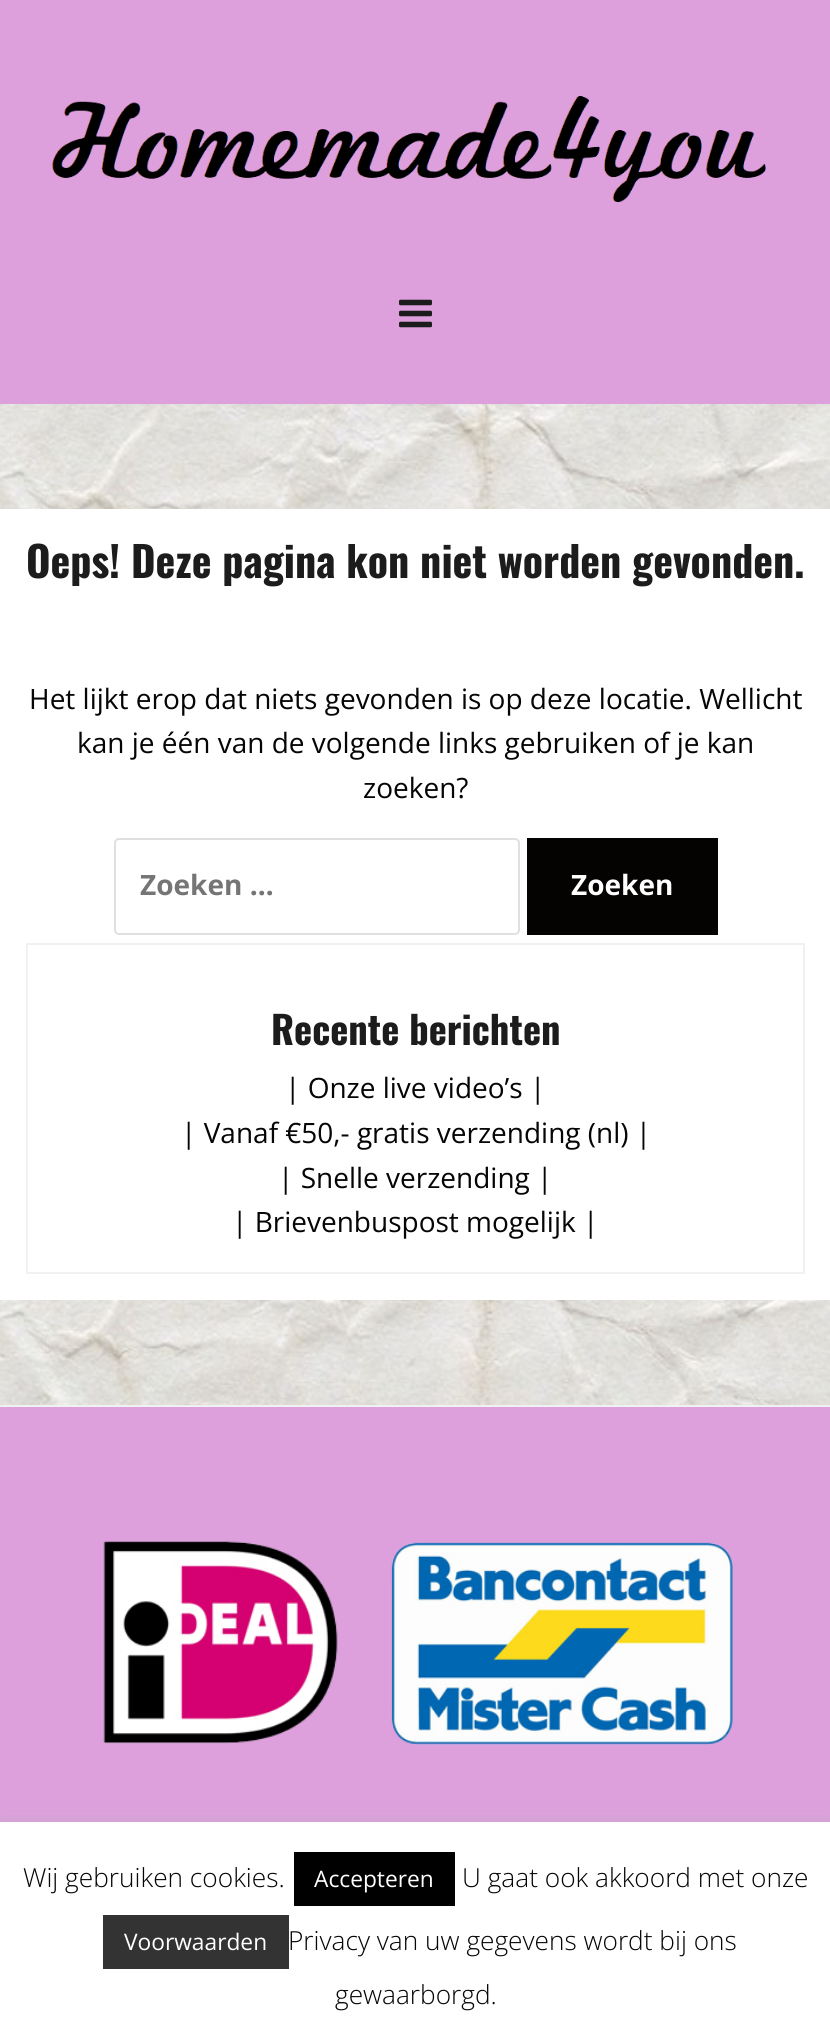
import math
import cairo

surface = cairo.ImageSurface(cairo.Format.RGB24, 830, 2035)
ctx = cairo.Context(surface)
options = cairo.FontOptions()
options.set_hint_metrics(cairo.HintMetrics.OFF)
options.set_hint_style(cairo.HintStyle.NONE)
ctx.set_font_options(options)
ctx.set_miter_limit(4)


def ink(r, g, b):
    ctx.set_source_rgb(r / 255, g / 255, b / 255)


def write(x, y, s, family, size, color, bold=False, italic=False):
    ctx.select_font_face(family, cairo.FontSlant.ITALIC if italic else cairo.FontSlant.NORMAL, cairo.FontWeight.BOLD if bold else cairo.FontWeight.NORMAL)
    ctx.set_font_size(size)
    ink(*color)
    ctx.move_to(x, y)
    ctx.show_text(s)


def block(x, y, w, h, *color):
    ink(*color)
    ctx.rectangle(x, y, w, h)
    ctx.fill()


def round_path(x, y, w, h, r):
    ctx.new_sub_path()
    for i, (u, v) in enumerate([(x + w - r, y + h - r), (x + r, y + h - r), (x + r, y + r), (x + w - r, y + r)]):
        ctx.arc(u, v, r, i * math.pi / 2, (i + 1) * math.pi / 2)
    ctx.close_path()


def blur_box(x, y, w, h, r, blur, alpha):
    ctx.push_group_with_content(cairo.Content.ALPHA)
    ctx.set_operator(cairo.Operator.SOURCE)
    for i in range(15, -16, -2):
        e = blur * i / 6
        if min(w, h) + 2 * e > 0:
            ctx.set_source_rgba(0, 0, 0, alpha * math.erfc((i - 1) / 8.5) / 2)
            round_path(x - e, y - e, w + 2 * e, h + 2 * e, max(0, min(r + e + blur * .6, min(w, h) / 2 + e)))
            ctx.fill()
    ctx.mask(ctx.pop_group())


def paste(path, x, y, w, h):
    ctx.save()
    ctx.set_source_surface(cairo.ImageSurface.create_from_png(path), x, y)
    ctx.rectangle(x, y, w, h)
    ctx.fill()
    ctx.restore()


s1 = dict(family="Oswald", size=42, color=(28, 28, 28), bold=True)
s2 = dict(family="Open Sans", size=28, color=(5, 5, 5))
s3 = dict(family="Open Sans", size=28, color=(117, 117, 117), bold=True)
s4 = dict(family="Open Sans", size=28, color=(255, 255, 255), bold=True)
s5 = dict(family="Oswald", size=38.5, color=(28, 28, 28), bold=True)
s6 = dict(family="Open Sans Light", size=26.25, color=(5, 5, 5))
s7 = dict(family="Open Sans", size=22.75, color=(255, 255, 255))

ink(255, 255, 255)
ctx.paint()
paste("pic1.png", 0, 404, 830, 1001)
block(0, 0, 830, 404, 221, 160, 221)
paste("pic2.png", 52, 96, 714, 106)
paste("pic3.png", 399, 299, 33, 29)
block(0, 509, 830, 791, 255, 255, 255)
write(26, 578, "Oeps! Deze pagina kon niet worden gevonden.", **s1)
write(29, 709, "Het lijkt erop dat niets gevonden is op deze locatie. Wellicht", **s2)
write(77, 753, "kan je één van de volgende links gebruiken of je kan", **s2)
write(363, 798, "zoeken?", **s2)
round_path(115, 839, 404, 95, 4)
ink(224, 224, 224)
ctx.stroke()
write(140, 895, "Zoeken …", **s3)
block(527, 838, 191, 97, 5, 2, 2)
write(571, 895, "Zoeken", **s4)
ctx.rectangle(27, 944, 777, 329)
ink(241, 241, 241)
ctx.stroke()
write(271, 1045, "Recente berichten", **s5)
write(285, 1098, "| Onze live video’s |", **s2)
write(181, 1143, "| Vanaf €50,- gratis verzending (nl) |", **s2)
write(278, 1188, "| Snelle verzending |", **s2)
write(232, 1232, "| Brievenbuspost mogelijk |", **s2)
block(0, 1407, 830, 415, 221, 160, 221)
block(0, 1405, 830, 2, 241, 241, 241)
paste("pic4.png", 103, 1541, 630, 204)
ink(172, 171, 171)
blur_box(0, 1820, 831, 214, 0, 9, 0.3)
block(0, 1822, 830, 213, 255, 255, 255)
write(23, 1887, "Wij gebruiken cookies.", **s6)
block(294, 1852, 161, 54, 0, 0, 0)
write(314, 1887, "Accepteren", **s7)
write(462, 1887, "U gaat ook akkoord met onze", **s6)
block(103, 1915, 186, 54, 51, 51, 51)
write(124, 1950, "Voorwaarden", **s7)
write(288, 1950, "Privacy van uw gegevens wordt bij ons", **s6)
write(335, 2004, "gewaarborgd.", **s6)
surface.write_to_png("screenshot.png")
